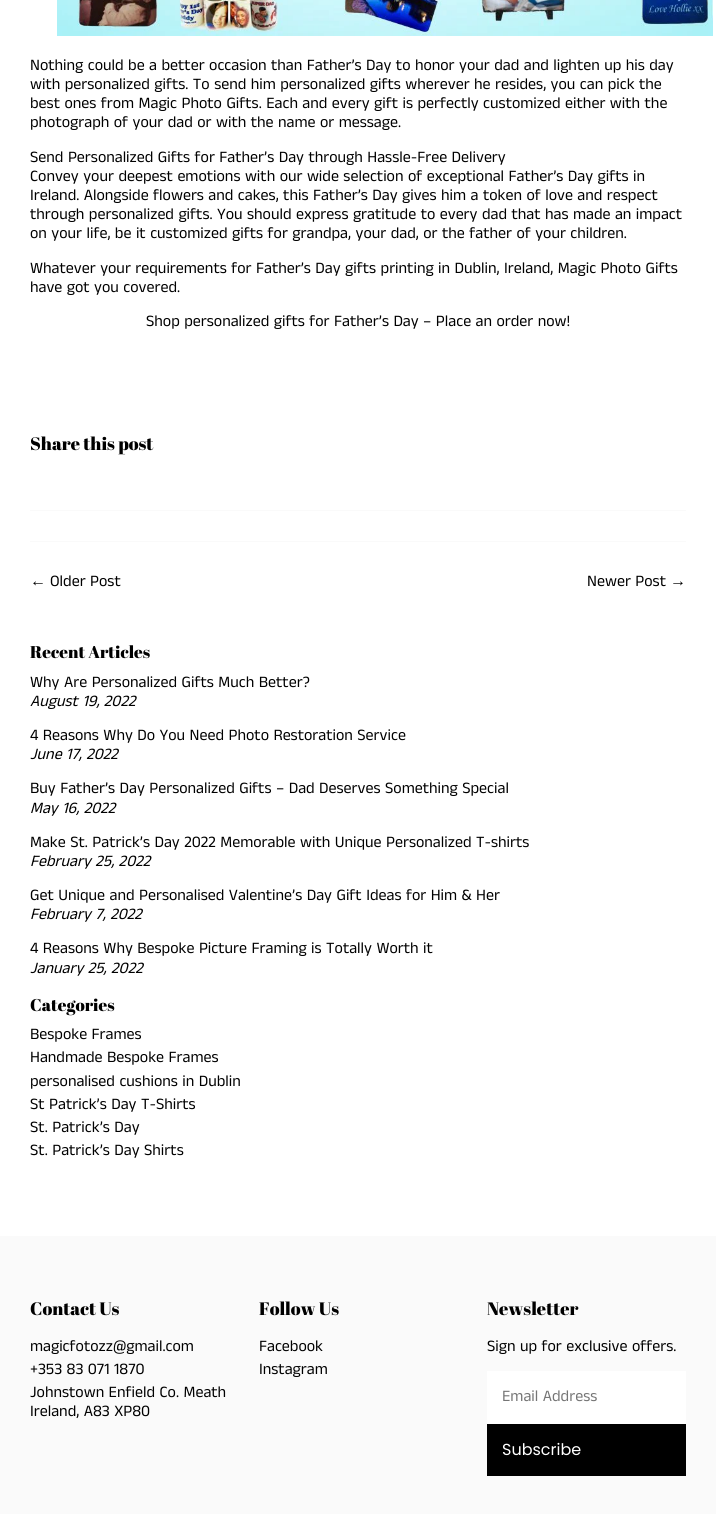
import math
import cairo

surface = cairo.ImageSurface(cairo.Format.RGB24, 716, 1514)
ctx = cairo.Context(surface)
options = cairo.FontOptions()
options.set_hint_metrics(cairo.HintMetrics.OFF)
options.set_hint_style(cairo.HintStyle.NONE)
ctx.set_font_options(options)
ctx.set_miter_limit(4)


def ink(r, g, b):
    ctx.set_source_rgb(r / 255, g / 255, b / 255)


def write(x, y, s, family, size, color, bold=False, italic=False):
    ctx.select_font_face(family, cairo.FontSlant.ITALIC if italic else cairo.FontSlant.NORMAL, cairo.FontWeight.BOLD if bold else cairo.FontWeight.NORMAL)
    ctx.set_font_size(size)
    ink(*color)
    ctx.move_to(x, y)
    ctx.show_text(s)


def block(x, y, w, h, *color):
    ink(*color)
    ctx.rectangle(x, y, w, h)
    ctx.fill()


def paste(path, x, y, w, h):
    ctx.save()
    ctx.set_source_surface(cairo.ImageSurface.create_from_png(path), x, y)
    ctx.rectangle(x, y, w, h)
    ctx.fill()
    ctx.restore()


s1 = dict(family="Anek Tamil", size=16, color=(0, 0, 0))
s2 = dict(family="Abril Fatface", size=18, color=(0, 0, 0))
s3 = dict(family="Liberation Sans", size=16, color=(0, 0, 0))
s4 = dict(family="Abril Fatface", size=17, color=(0, 0, 0))
s5 = dict(family="Anek Tamil", size=16, color=(0, 0, 0), italic=True)
s6 = dict(family="Anek Tamil", size=16, color=(117, 117, 117))
s7 = dict(family="Poppins", size=16, color=(255, 255, 255))

ink(255, 255, 255)
ctx.paint()
paste("pic1.png", 57, 0, 656, 36)
write(30, 70, "Nothing could be a better occasion than Father’s Day to honor your dad and lighten up his day", **s1)
write(30, 89, "with personalized gifts. To send him personalized gifts wherever he resides, you can pick the", **s1)
write(30, 108, "best ones from Magic Photo Gifts. Each and every gift is perfectly customized either with the", **s1)
write(30, 127, "photograph of your dad or with the name or message.", **s1)
write(30, 162, "Send Personalized Gifts for Father’s Day through Hassle-Free Delivery", **s1)
write(30, 181, "Convey your deepest emotions with our wide selection of exceptional Father’s Day gifts in", **s1)
write(30, 200, "Ireland. Alongside flowers and cakes, this Father’s Day gives him a token of love and respect", **s1)
write(30, 219, "through personalized gifts. You should express gratitude to every dad that has made an impact", **s1)
write(30, 238, "on your life, be it customized gifts for grandpa, your dad, or the father of your children.", **s1)
write(30, 273, "Whatever your requirements for Father’s Day gifts printing in Dublin, Ireland, Magic Photo Gifts", **s1)
write(30, 292, "have got you covered.", **s1)
write(146, 326, "Shop personalized gifts for Father’s Day – Place an order now!", **s1)
write(30, 450, "Share this post", **s2)
block(30, 510, 656, 1, 250, 250, 250)
block(30, 541, 656, 1, 250, 250, 250)
write(30, 586, "←", **s3)
write(50, 586, "Older Post", **s1)
write(587, 586, "Newer Post", **s1)
write(670, 586, "→", **s3)
write(30, 658, "Recent Articles", **s4)
write(30, 687, "Why Are Personalized Gifts Much Better?", **s1)
write(30, 706, "August 19, 2022", **s5)
write(30, 740, "4 Reasons Why Do You Need Photo Restoration Service", **s1)
write(30, 759, "June 17, 2022", **s5)
write(30, 793, "Buy Father’s Day Personalized Gifts – Dad Deserves Something Special", **s1)
write(30, 813, "May 16, 2022", **s5)
write(30, 847, "Make St. Patrick’s Day 2022 Memorable with Unique Personalized T-shirts", **s1)
write(30, 866, "February 25, 2022", **s5)
write(30, 900, "Get Unique and Personalised Valentine’s Day Gift Ideas for Him & Her", **s1)
write(30, 919, "February 7, 2022", **s5)
write(30, 953, "4 Reasons Why Bespoke Picture Framing is Totally Worth it", **s1)
write(30, 973, "January 25, 2022", **s5)
write(30, 1011, "Categories", **s4)
write(30, 1039, "Bespoke Frames", **s1)
write(30, 1062, "Handmade Bespoke Frames", **s1)
write(30, 1086, "personalised cushions in Dublin", **s1)
write(30, 1109, "St Patrick’s Day T-Shirts", **s1)
write(30, 1132, "St. Patrick’s Day", **s1)
write(30, 1155, "St. Patrick’s Day Shirts", **s1)
block(0, 1236, 716, 278, 250, 250, 250)
write(30, 1315, "Contact Us", **s2)
write(30, 1351, "magicfotozz@gmail.com", **s1)
write(30, 1374, "+353 83 071 1870", **s1)
write(30, 1397, "Johnstown Enfield Co. Meath", **s1)
write(30, 1416, "Ireland, A83 XP80", **s1)
write(259, 1315, "Follow Us", **s2)
write(259, 1351, "Facebook", **s1)
write(259, 1374, "Instagram", **s1)
write(487, 1315, "Newsletter", **s2)
write(487, 1351, "Sign up for exclusive offers.", **s1)
block(487, 1371, 199, 53, 255, 255, 255)
write(502, 1401, "Email Address", **s6)
block(487, 1424, 199, 52, 0, 0, 0)
write(502, 1455, "Subscribe", **s7)
surface.write_to_png("screenshot.png")
